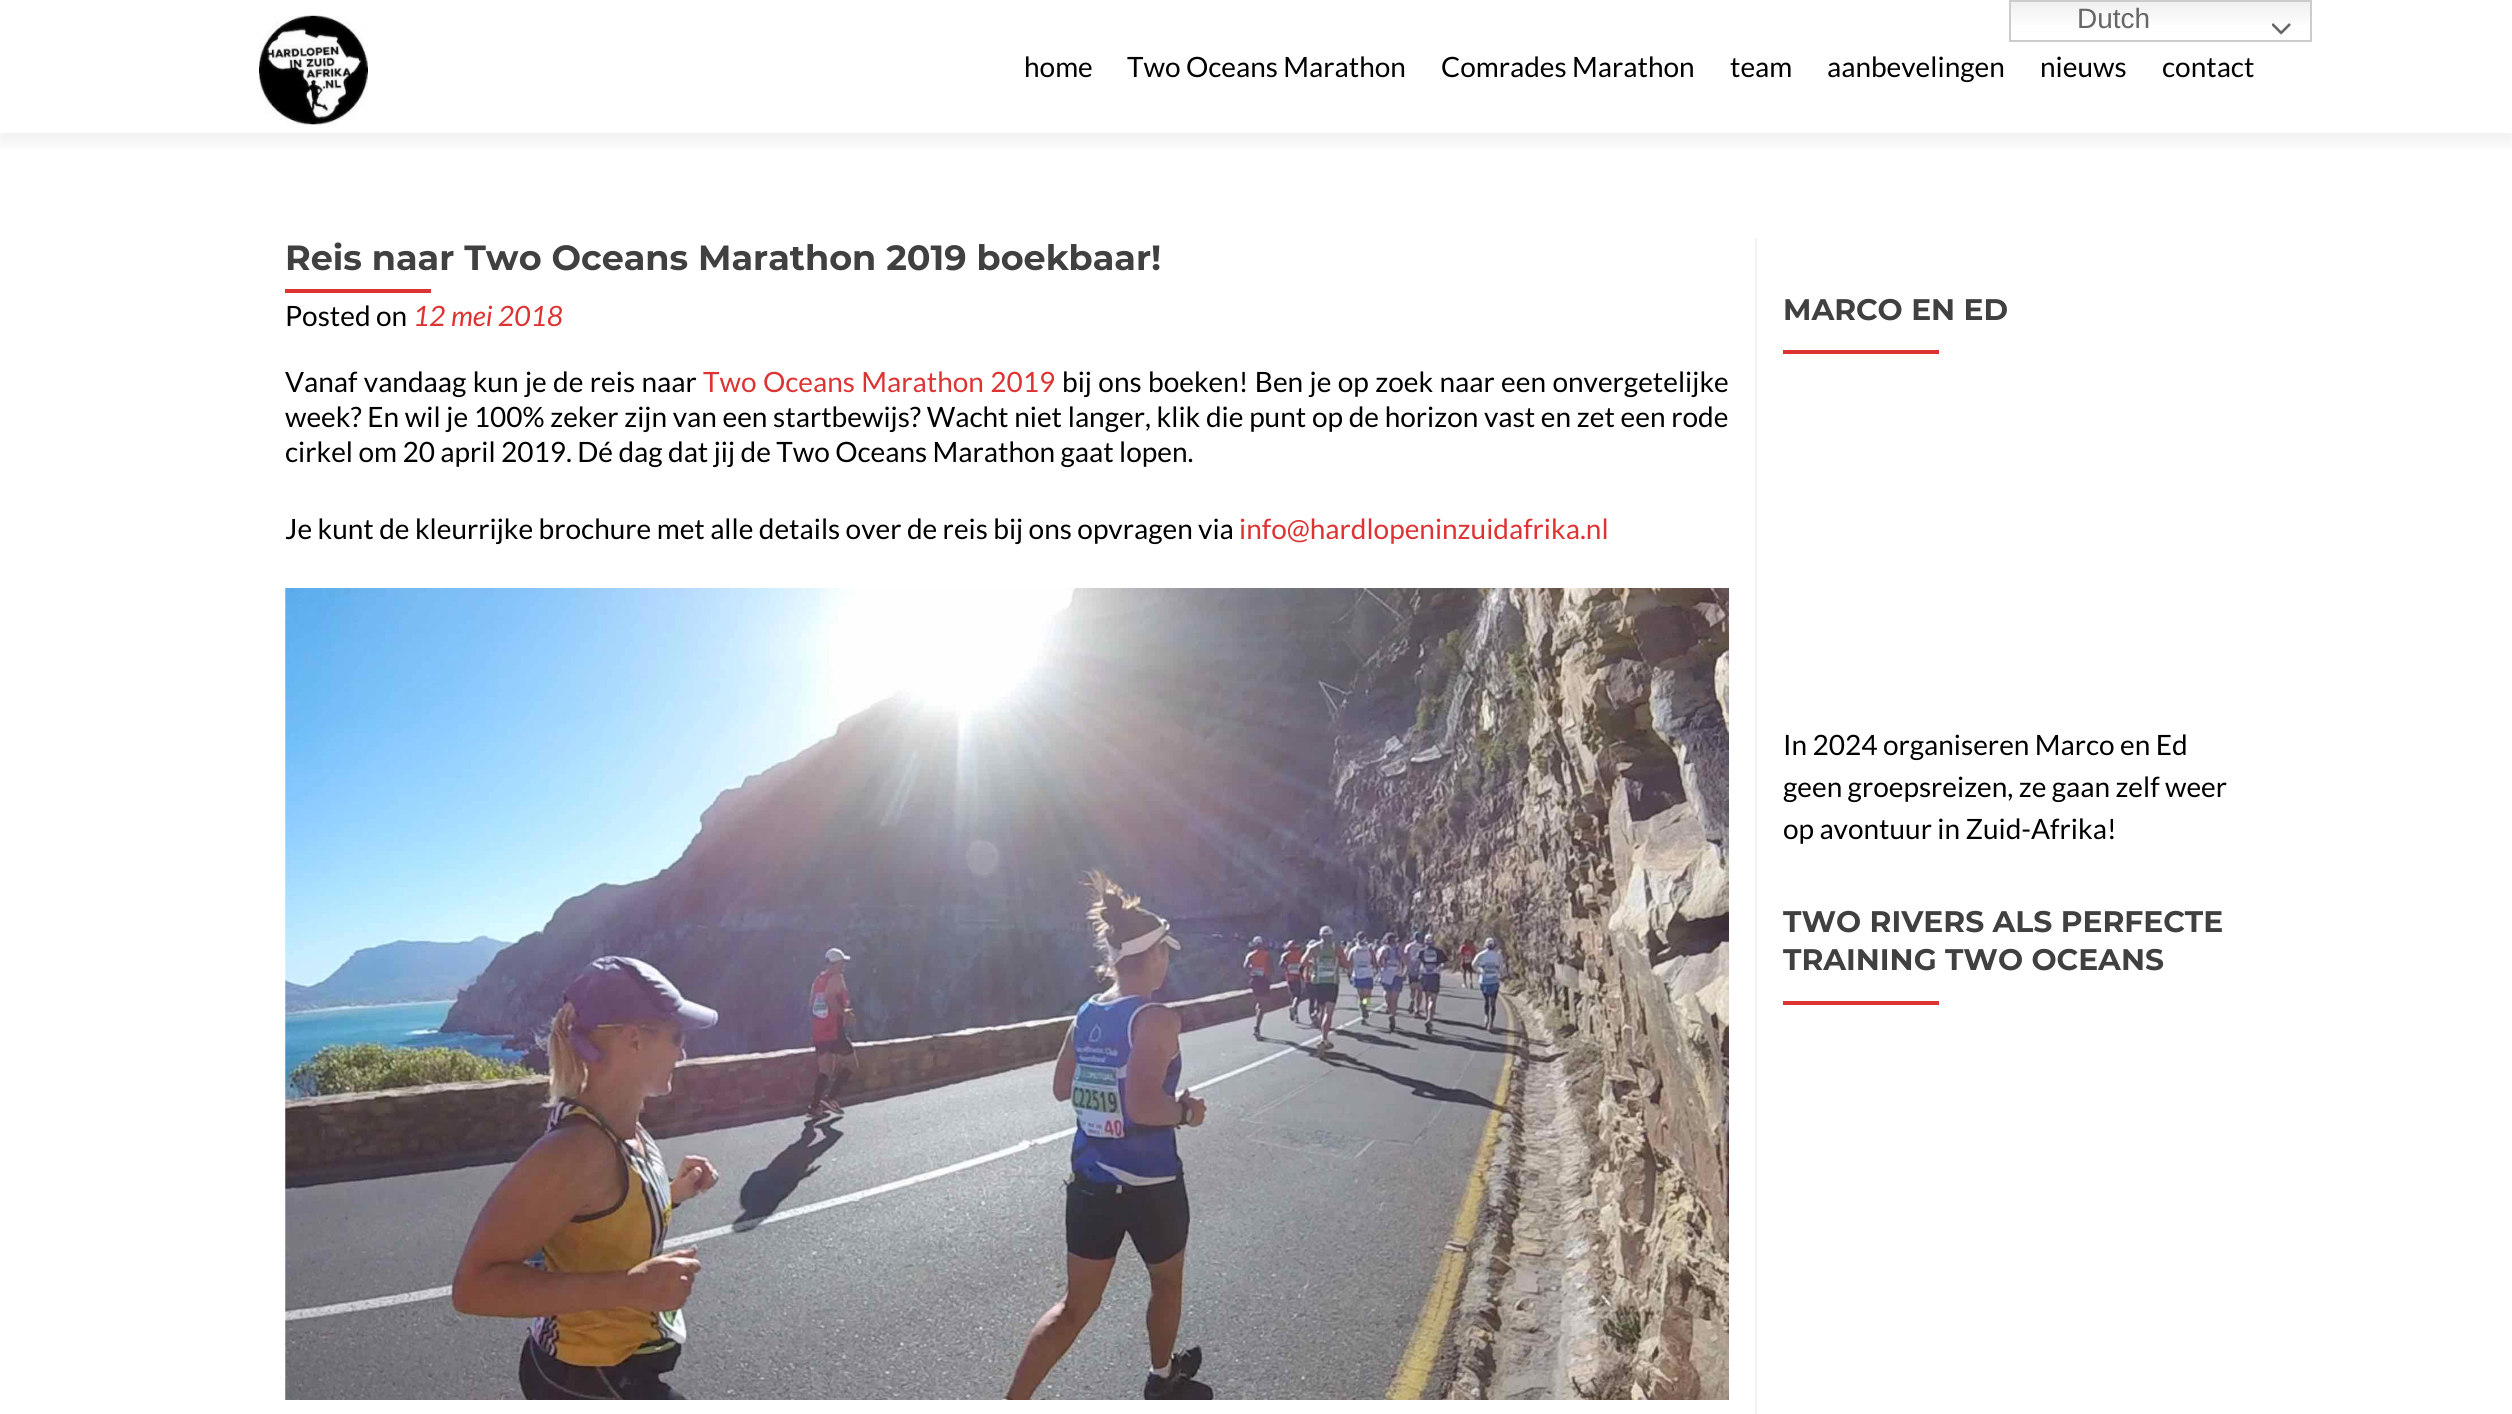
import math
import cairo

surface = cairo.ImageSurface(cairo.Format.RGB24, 2512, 1414)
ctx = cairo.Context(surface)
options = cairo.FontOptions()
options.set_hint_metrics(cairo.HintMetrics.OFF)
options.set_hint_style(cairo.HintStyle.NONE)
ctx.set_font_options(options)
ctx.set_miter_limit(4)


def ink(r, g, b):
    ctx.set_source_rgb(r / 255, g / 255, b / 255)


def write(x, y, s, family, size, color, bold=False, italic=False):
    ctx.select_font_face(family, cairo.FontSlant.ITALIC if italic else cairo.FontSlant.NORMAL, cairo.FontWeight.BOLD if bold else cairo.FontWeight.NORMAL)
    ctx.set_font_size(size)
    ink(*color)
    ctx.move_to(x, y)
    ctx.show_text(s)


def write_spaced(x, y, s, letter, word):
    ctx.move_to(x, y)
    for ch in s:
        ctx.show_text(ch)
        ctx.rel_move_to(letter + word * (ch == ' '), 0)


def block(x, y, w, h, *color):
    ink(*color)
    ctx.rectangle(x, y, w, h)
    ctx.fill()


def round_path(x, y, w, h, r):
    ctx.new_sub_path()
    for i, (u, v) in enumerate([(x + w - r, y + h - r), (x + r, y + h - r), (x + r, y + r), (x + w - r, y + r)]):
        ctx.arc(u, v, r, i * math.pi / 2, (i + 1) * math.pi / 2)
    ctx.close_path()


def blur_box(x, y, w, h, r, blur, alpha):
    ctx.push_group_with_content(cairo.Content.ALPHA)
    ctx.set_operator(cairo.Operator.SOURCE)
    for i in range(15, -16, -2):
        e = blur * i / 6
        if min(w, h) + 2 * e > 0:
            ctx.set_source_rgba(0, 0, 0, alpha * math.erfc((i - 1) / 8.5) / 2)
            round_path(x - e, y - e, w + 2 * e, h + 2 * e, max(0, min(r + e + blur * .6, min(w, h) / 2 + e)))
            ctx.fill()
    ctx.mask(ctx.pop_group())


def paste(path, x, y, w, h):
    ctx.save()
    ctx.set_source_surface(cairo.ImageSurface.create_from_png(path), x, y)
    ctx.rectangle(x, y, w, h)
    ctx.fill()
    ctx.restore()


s1 = dict(family="Liberation Sans", size=28, color=(102, 102, 102))
s2 = dict(family="Lato", size=28, color=(0, 0, 0))
s3 = dict(family="Montserrat Thin", size=35, color=(64, 64, 64))
s4 = dict(family="Lato", size=28, color=(221, 51, 51), italic=True)
s5 = dict(family="Lato", size=28, color=(221, 51, 51))
s6 = dict(family="Montserrat Thin", size=29.75, color=(64, 64, 64))

ink(255, 255, 255)
ctx.paint()
ctx.save()
ctx.rectangle(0, 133, 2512, 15)
ctx.clip()
ink(50, 50, 50)
blur_box(0, 9, 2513, 133, 0, 9.5, 0.08)
ctx.restore()
gradient = cairo.LinearGradient(2160, 0, 2160, 42)
gradient.add_color_stop_rgba(0, 0.937, 0.937, 0.937, 1)
gradient.add_color_stop_rgba(0.7, 1, 1, 1, 1)
ctx.set_source(gradient)
ctx.rectangle(2011, 2, 299, 23)
ctx.fill()
ctx.rectangle(2010, 1, 301, 40)
ink(204, 204, 204)
ctx.stroke()
write(2077, 28, "Dutch", **s1)
paste("pic1.png", 2272, 23, 19, 12)
paste("pic2.png", 259, 15, 109, 110)
write(1024, 77, "home", **s2)
write(1127, 77, "Two Oceans Marathon", **s2)
write(1441, 77, "Comrades Marathon", **s2)
write(1730, 77, "team", **s2)
write(1827, 77, "aanbevelingen", **s2)
write(2040, 77, "nieuws", **s2)
write(2162, 77, "contact", **s2)
write(285, 270, "Reis naar Two Oceans Marathon 2019 boekbaar!", **s3)
block(285, 289, 146, 4, 221, 51, 51)
write(285, 326, "Posted on", **s2)
write(413, 326, "12 mei 2018", **s4)
ctx.select_font_face("Lato")
ink(0, 0, 0)
write_spaced(285, 392, "Vanaf vandaag kun je de reis naar", 0, 1)
ink(221, 51, 51)
write_spaced(703, 392, "Two Oceans Marathon 2019", 0, 1)
ink(0, 0, 0)
write_spaced(1062, 392, "bij ons boeken! Ben je op zoek naar een onvergetelijke", 0, 1)
write_spaced(285, 427, "week? En wil je 100% zeker zijn van een startbewijs? Wacht niet langer, klik die punt op de horizon vast en zet een rode", 0, 0.3)
write(285, 462, "cirkel om 20 april 2019. Dé dag dat jij de Two Oceans Marathon gaat lopen.", **s2)
write(285, 539, "Je kunt de kleurrijke brochure met alle details over de reis bij ons opvragen via", **s2)
write(1239, 539, "info@hardlopeninzuidafrika.nl", **s5)
paste("pic3.png", 285, 588, 1444, 812)
block(1755, 238, 2, 1176, 242, 242, 242)
write(1783, 320, "MARCO EN ED", **s6)
block(1783, 350, 156, 4, 221, 51, 51)
write(1783, 755, "In 2024 organiseren Marco en Ed", **s2)
write(1783, 797, "geen groepsreizen, ze gaan zelf weer", **s2)
write(1783, 839, "op avontuur in Zuid-Afrika!", **s2)
write(1783, 932, "TWO RIVERS ALS PERFECTE", **s6)
write(1783, 970, "TRAINING TWO OCEANS", **s6)
block(1783, 1001, 156, 4, 221, 51, 51)
surface.write_to_png("screenshot.png")
